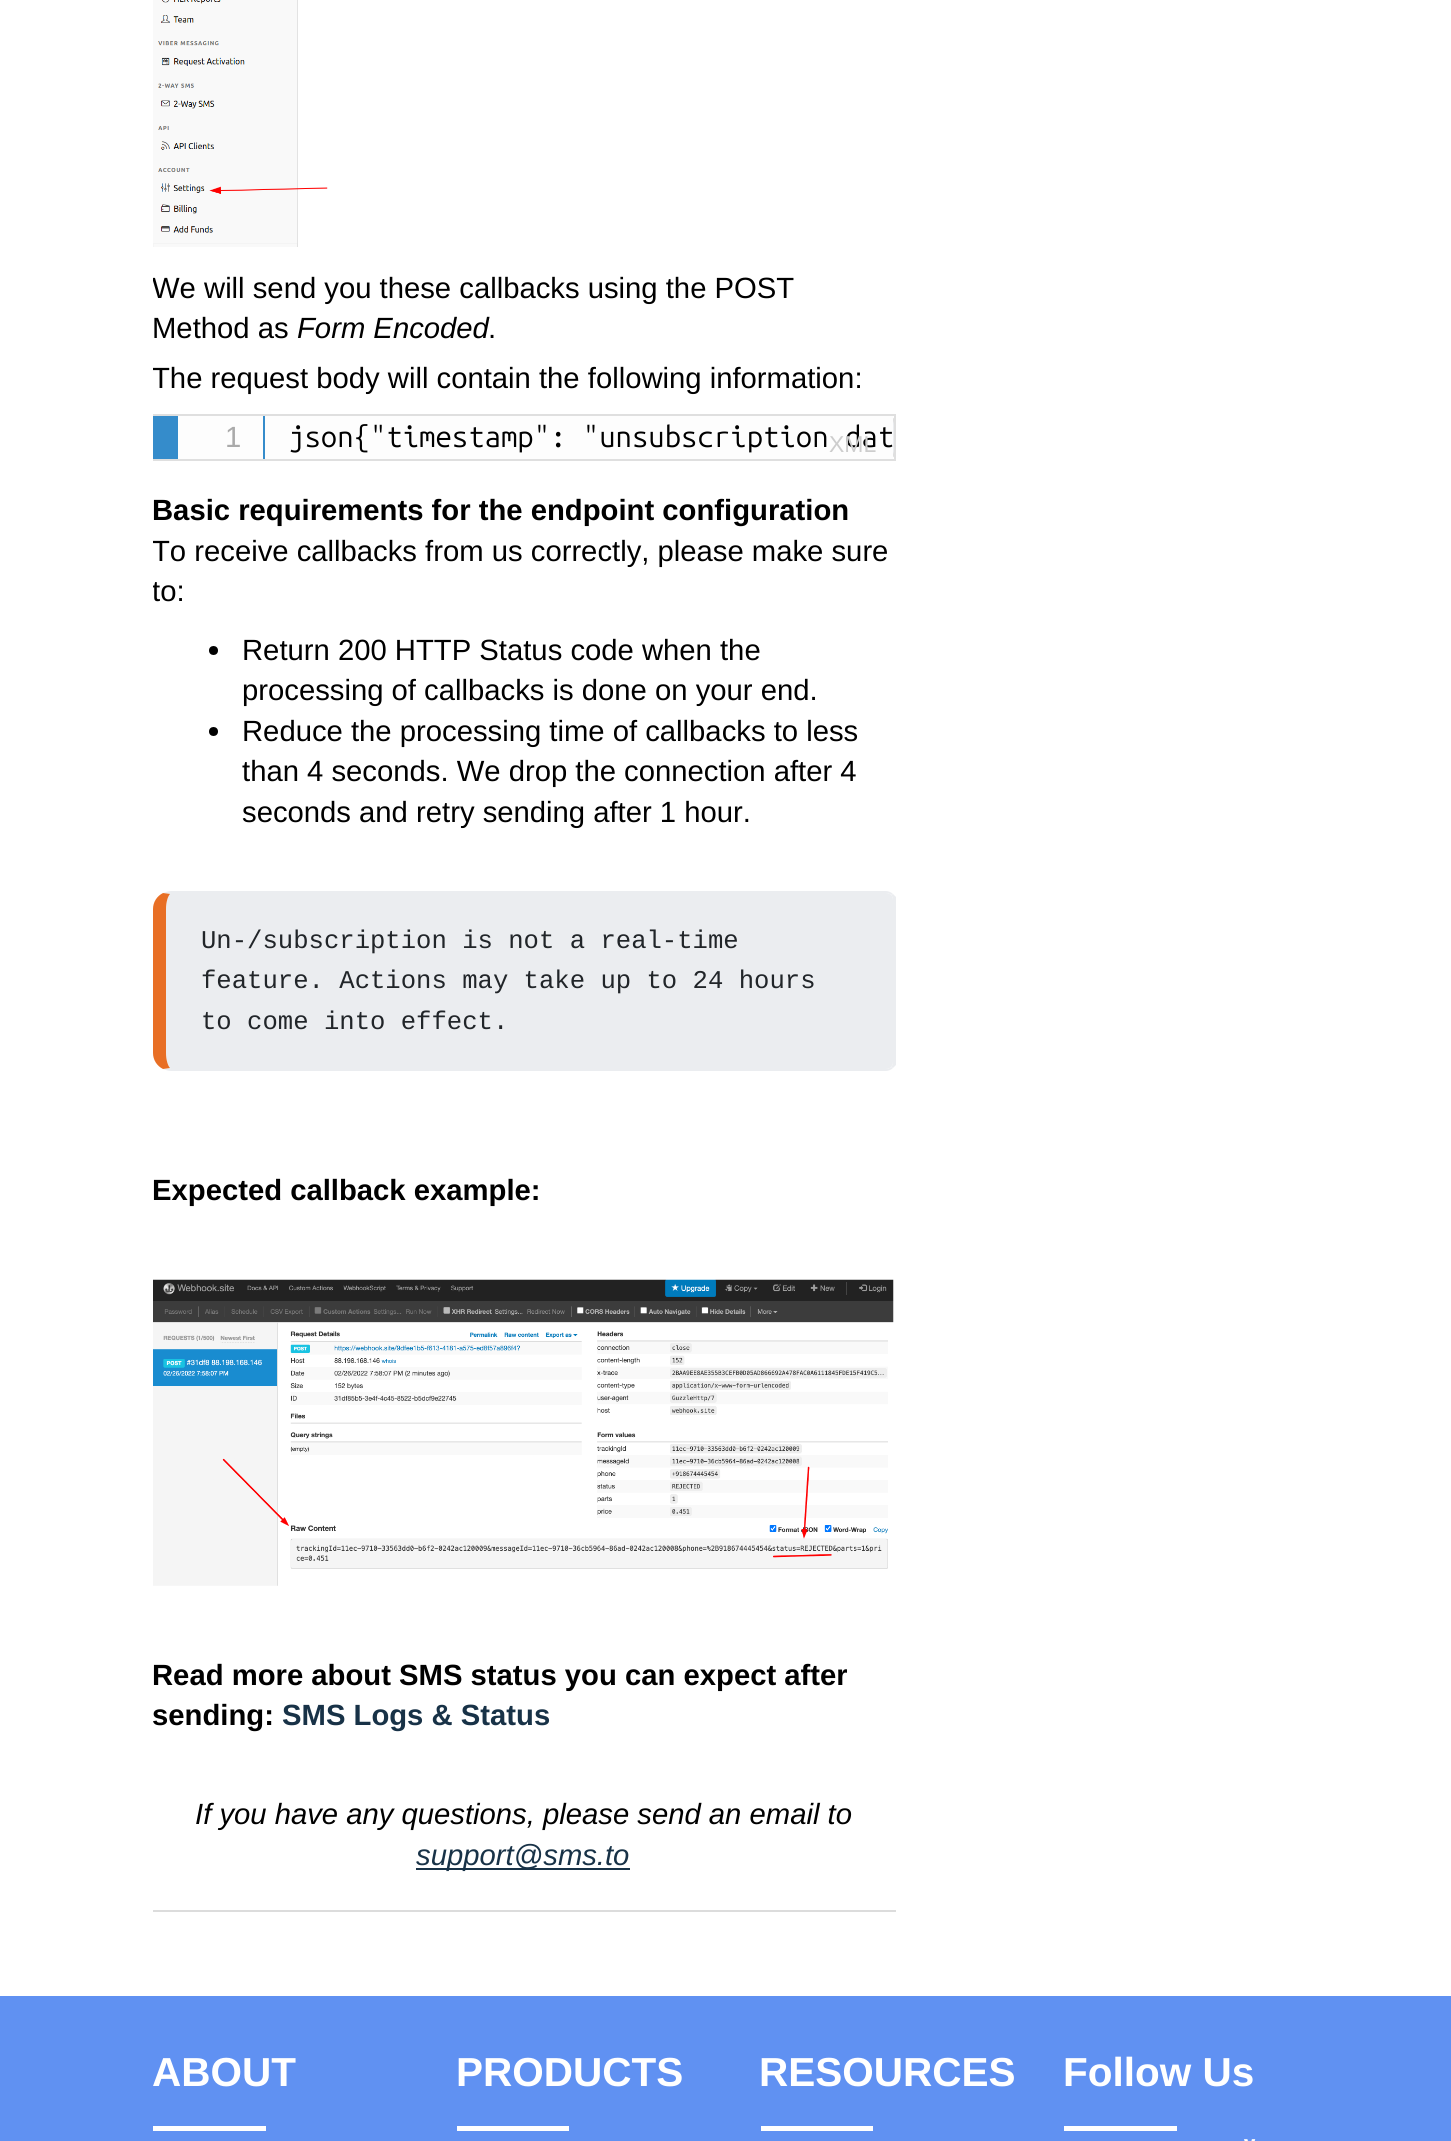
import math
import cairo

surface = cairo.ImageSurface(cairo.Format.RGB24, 1451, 2141)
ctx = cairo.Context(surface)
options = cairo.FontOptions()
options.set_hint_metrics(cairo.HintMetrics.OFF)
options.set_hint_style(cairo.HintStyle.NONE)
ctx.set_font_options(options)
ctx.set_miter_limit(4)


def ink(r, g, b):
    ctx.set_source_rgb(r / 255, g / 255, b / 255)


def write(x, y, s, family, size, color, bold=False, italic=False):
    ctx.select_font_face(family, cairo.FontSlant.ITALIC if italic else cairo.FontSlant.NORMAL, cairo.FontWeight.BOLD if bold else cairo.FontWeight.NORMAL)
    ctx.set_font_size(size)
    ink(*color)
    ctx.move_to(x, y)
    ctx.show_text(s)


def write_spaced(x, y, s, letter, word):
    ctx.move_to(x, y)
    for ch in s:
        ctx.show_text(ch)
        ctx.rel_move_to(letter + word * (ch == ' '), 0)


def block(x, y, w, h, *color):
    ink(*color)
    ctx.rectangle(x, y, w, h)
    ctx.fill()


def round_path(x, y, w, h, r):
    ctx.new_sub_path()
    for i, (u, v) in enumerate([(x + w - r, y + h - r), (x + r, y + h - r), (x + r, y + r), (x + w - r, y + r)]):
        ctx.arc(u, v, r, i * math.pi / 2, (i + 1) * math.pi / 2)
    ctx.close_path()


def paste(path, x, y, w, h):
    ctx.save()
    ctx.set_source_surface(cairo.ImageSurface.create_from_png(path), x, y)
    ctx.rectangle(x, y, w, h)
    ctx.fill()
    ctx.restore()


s1 = dict(family="Liberation Sans", size=29.25, color=(0, 0, 0))
s2 = dict(family="Liberation Sans", size=29.25, color=(0, 0, 0), italic=True)
s3 = dict(family="Ubuntu Mono", size=29.25, color=(0, 0, 0))
s4 = dict(family="Liberation Sans", size=23, color=(205, 205, 205))
s5 = dict(family="Liberation Sans", size=29.25, color=(0, 0, 0), bold=True)
s6 = dict(family="Liberation Mono", size=25.6, color=(33, 37, 41))
s7 = dict(family="Liberation Sans", size=29.25, color=(24, 50, 71), bold=True)
s8 = dict(family="Liberation Sans", size=29.25, color=(24, 50, 71), italic=True)
s9 = dict(family="Liberation Sans", size=40.5, color=(255, 255, 255), bold=True)

ink(255, 255, 255)
ctx.paint()
paste("pic1.png", 153, 0, 175, 247)
ctx.save()
ctx.rectangle(153, 0, 743, 1877)
ctx.clip()
write(152, 298, "We will send you these callbacks using the POST", **s1)
ctx.restore()
write(152, 338, "Method as", **s1)
write(297, 338, "Form Encoded", **s2)
write(488, 338, ".", **s1)
ctx.save()
ctx.rectangle(153, 0, 743, 1877)
ctx.clip()
write(152, 388, "The request body will contain the following information:", **s1)
ctx.restore()
ink(235, 237, 240)
round_path(154, 415, 741, 45, 10)
ctx.fill_preserve()
ink(223, 223, 223)
ctx.stroke()
ctx.rectangle(154, 415, 741, 45)
ctx.stroke()
ink(53, 140, 203)
ctx.new_path()
ctx.move_to(153, 416)
ctx.line_to(153, 459)
ctx.line_to(155, 459)
ctx.line_to(155, 416)
ctx.line_to(891, 416)
ctx.close_path()
ctx.fill()
block(178, 416, 715, 43, 253, 253, 253)
block(155, 416, 23, 43, 53, 140, 203)
block(263, 416, 2, 43, 53, 140, 203)
ink(170, 170, 170)
write_spaced(225, 447, "1", -2, 0)
write(288, 447, "json{\"timestamp\": \"unsubscription dat", **s3)
write(829, 452, "XML", **s4)
write(152, 520, "Basic requirements for the endpoint configuration", **s5)
ctx.save()
ctx.rectangle(153, 0, 743, 1877)
ctx.clip()
write(152, 561, "To receive callbacks from us correctly, please make sure", **s1)
write(152, 601, "to:", **s1)
ctx.restore()
ctx.new_path()
ctx.arc(213.5, 650.5, 4.5, 0, 2 * math.pi)
ctx.fill()
write(242, 660, "Return 200 HTTP Status code when the", **s1)
write(242, 700, "processing of callbacks is done on your end.", **s1)
ctx.new_path()
ctx.arc(213.5, 731.5, 4.5, 0, 2 * math.pi)
ctx.fill()
write(242, 741, "Reduce the processing time of callbacks to less", **s1)
write(242, 781, "than 4 seconds. We drop the connection after 4", **s1)
write(242, 822, "seconds and retry sending after 1 hour.", **s1)
ink(235, 237, 240)
ctx.new_path()
ctx.move_to(171, 893)
ctx.line_to(886, 893)
ctx.curve_to(890, 893, 893, 896, 893, 900)
ctx.line_to(893, 1062)
ctx.curve_to(893, 1066, 890, 1069, 886, 1069)
ctx.line_to(171, 1069)
ctx.curve_to(169, 1069, 166, 1062, 166, 1053)
ctx.line_to(166, 909)
ctx.curve_to(166, 900, 169, 893, 171, 893)
ctx.close_path()
ctx.fill()
ctx.new_path()
ctx.move_to(171, 891)
ctx.curve_to(168, 891, 166, 892, 163, 893)
ctx.line_to(170, 894)
ctx.line_to(171, 893)
ctx.line_to(886, 893)
ctx.curve_to(888, 893, 890, 894, 891, 895)
ctx.line_to(893, 894)
ctx.curve_to(891, 892, 888, 891, 886, 891)
ctx.close_path()
ctx.fill()
ctx.new_path()
ctx.move_to(896, 1065)
ctx.line_to(893, 1068)
ctx.line_to(891, 1067)
ctx.curve_to(892, 1066, 893, 1064, 893, 1062)
ctx.line_to(893, 900)
ctx.curve_to(893, 898, 892, 896, 891, 895)
ctx.line_to(893, 894)
ctx.line_to(896, 897)
ctx.close_path()
ctx.fill()
ctx.new_path()
ctx.move_to(171, 1071)
ctx.line_to(886, 1071)
ctx.curve_to(888, 1071, 891, 1070, 893, 1068)
ctx.line_to(891, 1067)
ctx.curve_to(890, 1068, 888, 1069, 886, 1069)
ctx.line_to(171, 1069)
ctx.line_to(170, 1068)
ctx.line_to(163, 1069)
ctx.curve_to(166, 1070, 168, 1071, 171, 1071)
ctx.close_path()
ctx.fill()
ink(232, 111, 37)
ctx.new_path()
ctx.move_to(153, 909)
ctx.line_to(153, 1053)
ctx.curve_to(153, 1060, 157, 1066, 163, 1069)
ctx.line_to(170, 1068)
ctx.curve_to(168, 1066, 166, 1060, 166, 1053)
ctx.line_to(166, 909)
ctx.curve_to(166, 902, 168, 896, 170, 894)
ctx.line_to(163, 893)
ctx.curve_to(157, 896, 153, 902, 153, 909)
ctx.close_path()
ctx.fill()
write(201, 948, "Un-/subscription is not a real-time", **s6)
write(201, 988, "feature. Actions may take up to 24 hours", **s6)
write(201, 1029, "to come into effect.", **s6)
write(152, 1200, "Expected callback example:", **s5)
paste("pic2.png", 153, 1279, 741, 307)
write(152, 1685, "Read more about SMS status you can expect after", **s5)
write(152, 1725, "sending:", **s5)
write(282, 1725, "SMS Logs & Status", **s7)
write(195, 1824, "If you have any questions, please send an email to", **s2)
block(416, 1868, 214, 2, 24, 50, 71)
write(416, 1865, "support@sms.to", **s8)
block(153, 1910, 743, 2, 220, 220, 220)
block(0, 1996, 1451, 145, 96, 145, 242)
write(152, 2086, "ABOUT", **s9)
block(153, 2126, 113, 5, 255, 255, 255)
write(456, 2086, "PRODUCTS", **s9)
block(457, 2126, 112, 5, 255, 255, 255)
write(759, 2086, "RESOURCES", **s9)
block(761, 2126, 112, 5, 255, 255, 255)
write(1063, 2086, "Follow Us", **s9)
block(1064, 2126, 113, 5, 255, 255, 255)
paste("pic3.png", 1244, 2139, 12, 2)
surface.write_to_png("screenshot.png")
